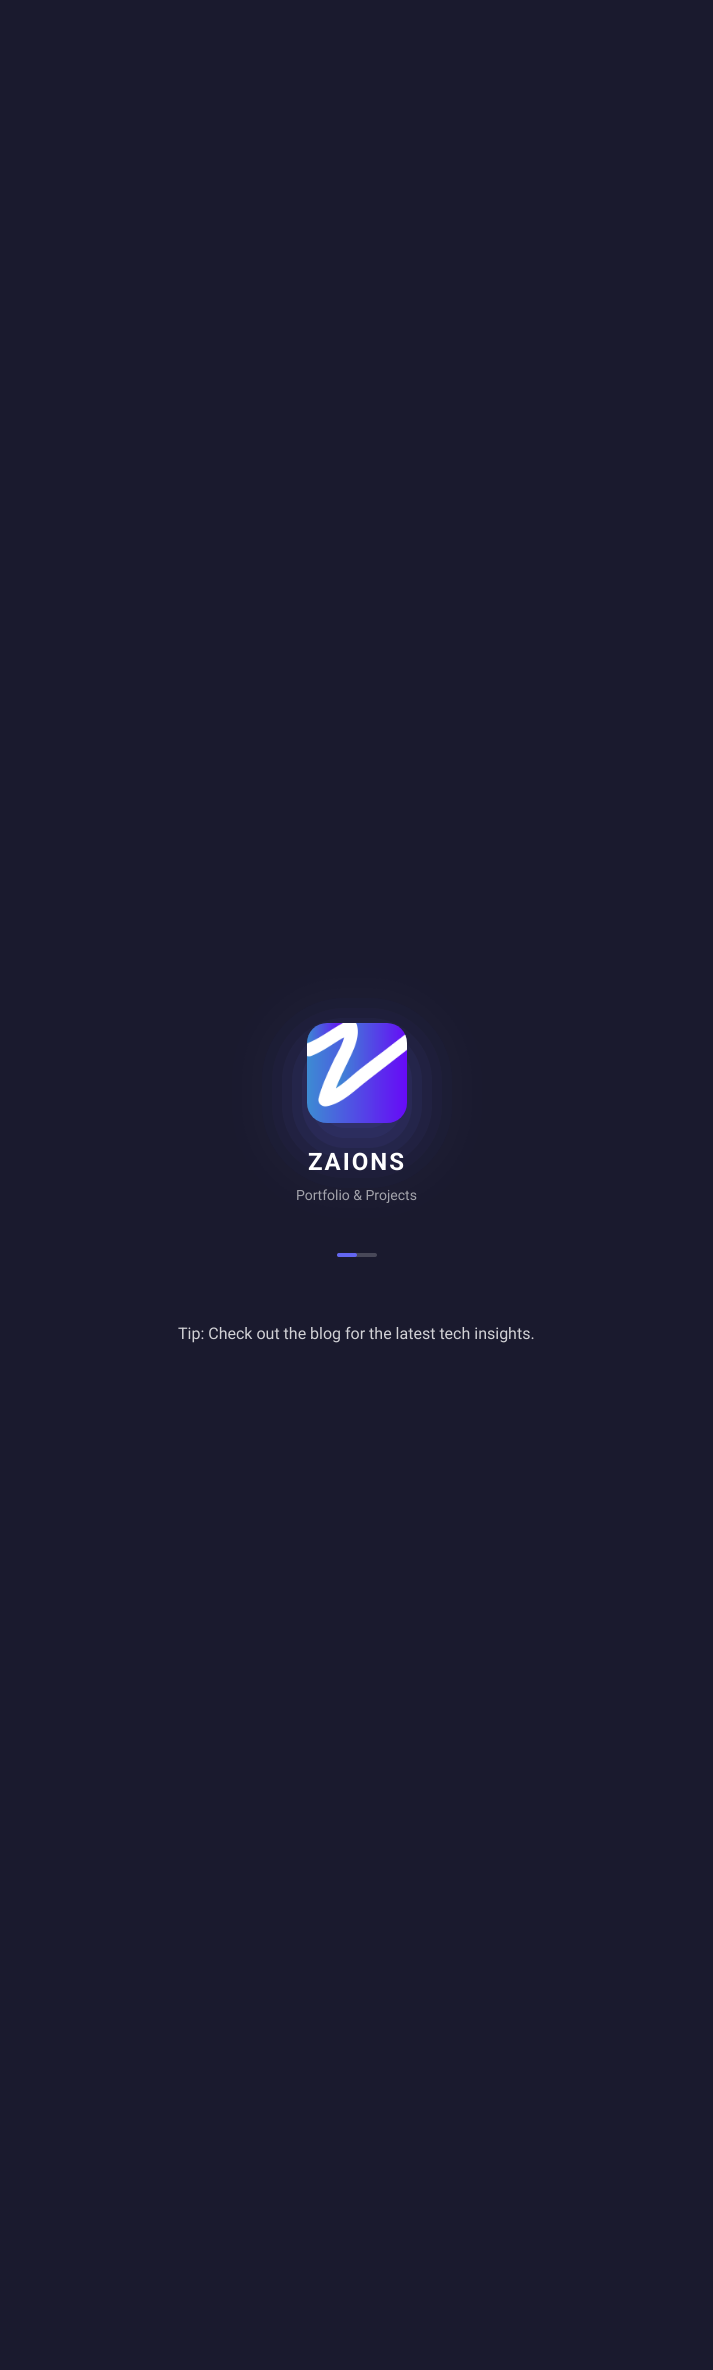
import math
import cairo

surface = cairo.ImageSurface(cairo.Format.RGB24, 713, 2370)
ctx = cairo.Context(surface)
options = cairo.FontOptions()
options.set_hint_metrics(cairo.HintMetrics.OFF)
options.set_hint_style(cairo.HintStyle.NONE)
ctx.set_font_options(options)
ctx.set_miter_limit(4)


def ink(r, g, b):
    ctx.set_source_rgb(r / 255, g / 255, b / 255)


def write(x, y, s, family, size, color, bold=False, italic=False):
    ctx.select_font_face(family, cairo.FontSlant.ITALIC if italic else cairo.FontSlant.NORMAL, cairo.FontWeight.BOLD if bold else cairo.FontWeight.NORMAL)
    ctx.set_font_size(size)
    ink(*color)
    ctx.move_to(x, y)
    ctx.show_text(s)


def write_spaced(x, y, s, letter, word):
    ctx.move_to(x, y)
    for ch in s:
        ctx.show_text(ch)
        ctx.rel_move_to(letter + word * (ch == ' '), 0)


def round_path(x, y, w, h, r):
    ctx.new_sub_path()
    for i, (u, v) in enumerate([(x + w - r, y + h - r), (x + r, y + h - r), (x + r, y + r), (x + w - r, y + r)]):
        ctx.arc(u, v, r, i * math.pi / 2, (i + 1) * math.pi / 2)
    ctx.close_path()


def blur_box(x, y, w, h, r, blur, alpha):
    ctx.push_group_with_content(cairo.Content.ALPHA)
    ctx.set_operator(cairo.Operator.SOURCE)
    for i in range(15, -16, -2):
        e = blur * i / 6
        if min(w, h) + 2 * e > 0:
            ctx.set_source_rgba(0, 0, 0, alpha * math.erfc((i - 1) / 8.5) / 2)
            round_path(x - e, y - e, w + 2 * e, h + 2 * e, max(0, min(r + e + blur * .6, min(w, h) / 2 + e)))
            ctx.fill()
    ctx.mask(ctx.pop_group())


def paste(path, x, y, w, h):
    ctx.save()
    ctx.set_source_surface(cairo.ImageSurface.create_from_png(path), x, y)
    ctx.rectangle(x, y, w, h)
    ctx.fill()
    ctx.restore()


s1 = dict(family="Roboto", size=14, color=(163, 163, 171))
s2 = dict(family="Roboto", size=16, color=(209, 209, 213))

ink(26, 26, 46)
ctx.paint()
ink(99, 102, 241)
blur_box(307, 1043, 100, 100, 20, 30, 0.4)
paste("pic1.png", 307, 1023, 100, 100)
ctx.select_font_face("Roboto", cairo.FontSlant.NORMAL, cairo.FontWeight.BOLD)
ctx.set_font_size(24)
ink(255, 255, 255)
write_spaced(308, 1170, "ZAIONS", 2, 0)
write(296, 1200, "Portfolio & Projects", **s1)
ink(72, 72, 88)
round_path(337, 1253, 40, 4, 2)
ctx.fill()
ink(99, 102, 241)
round_path(337, 1253, 20, 4, 2)
ctx.fill()
write(178, 1339, "Tip: Check out the blog for the latest tech insights.", **s2)
surface.write_to_png("screenshot.png")
